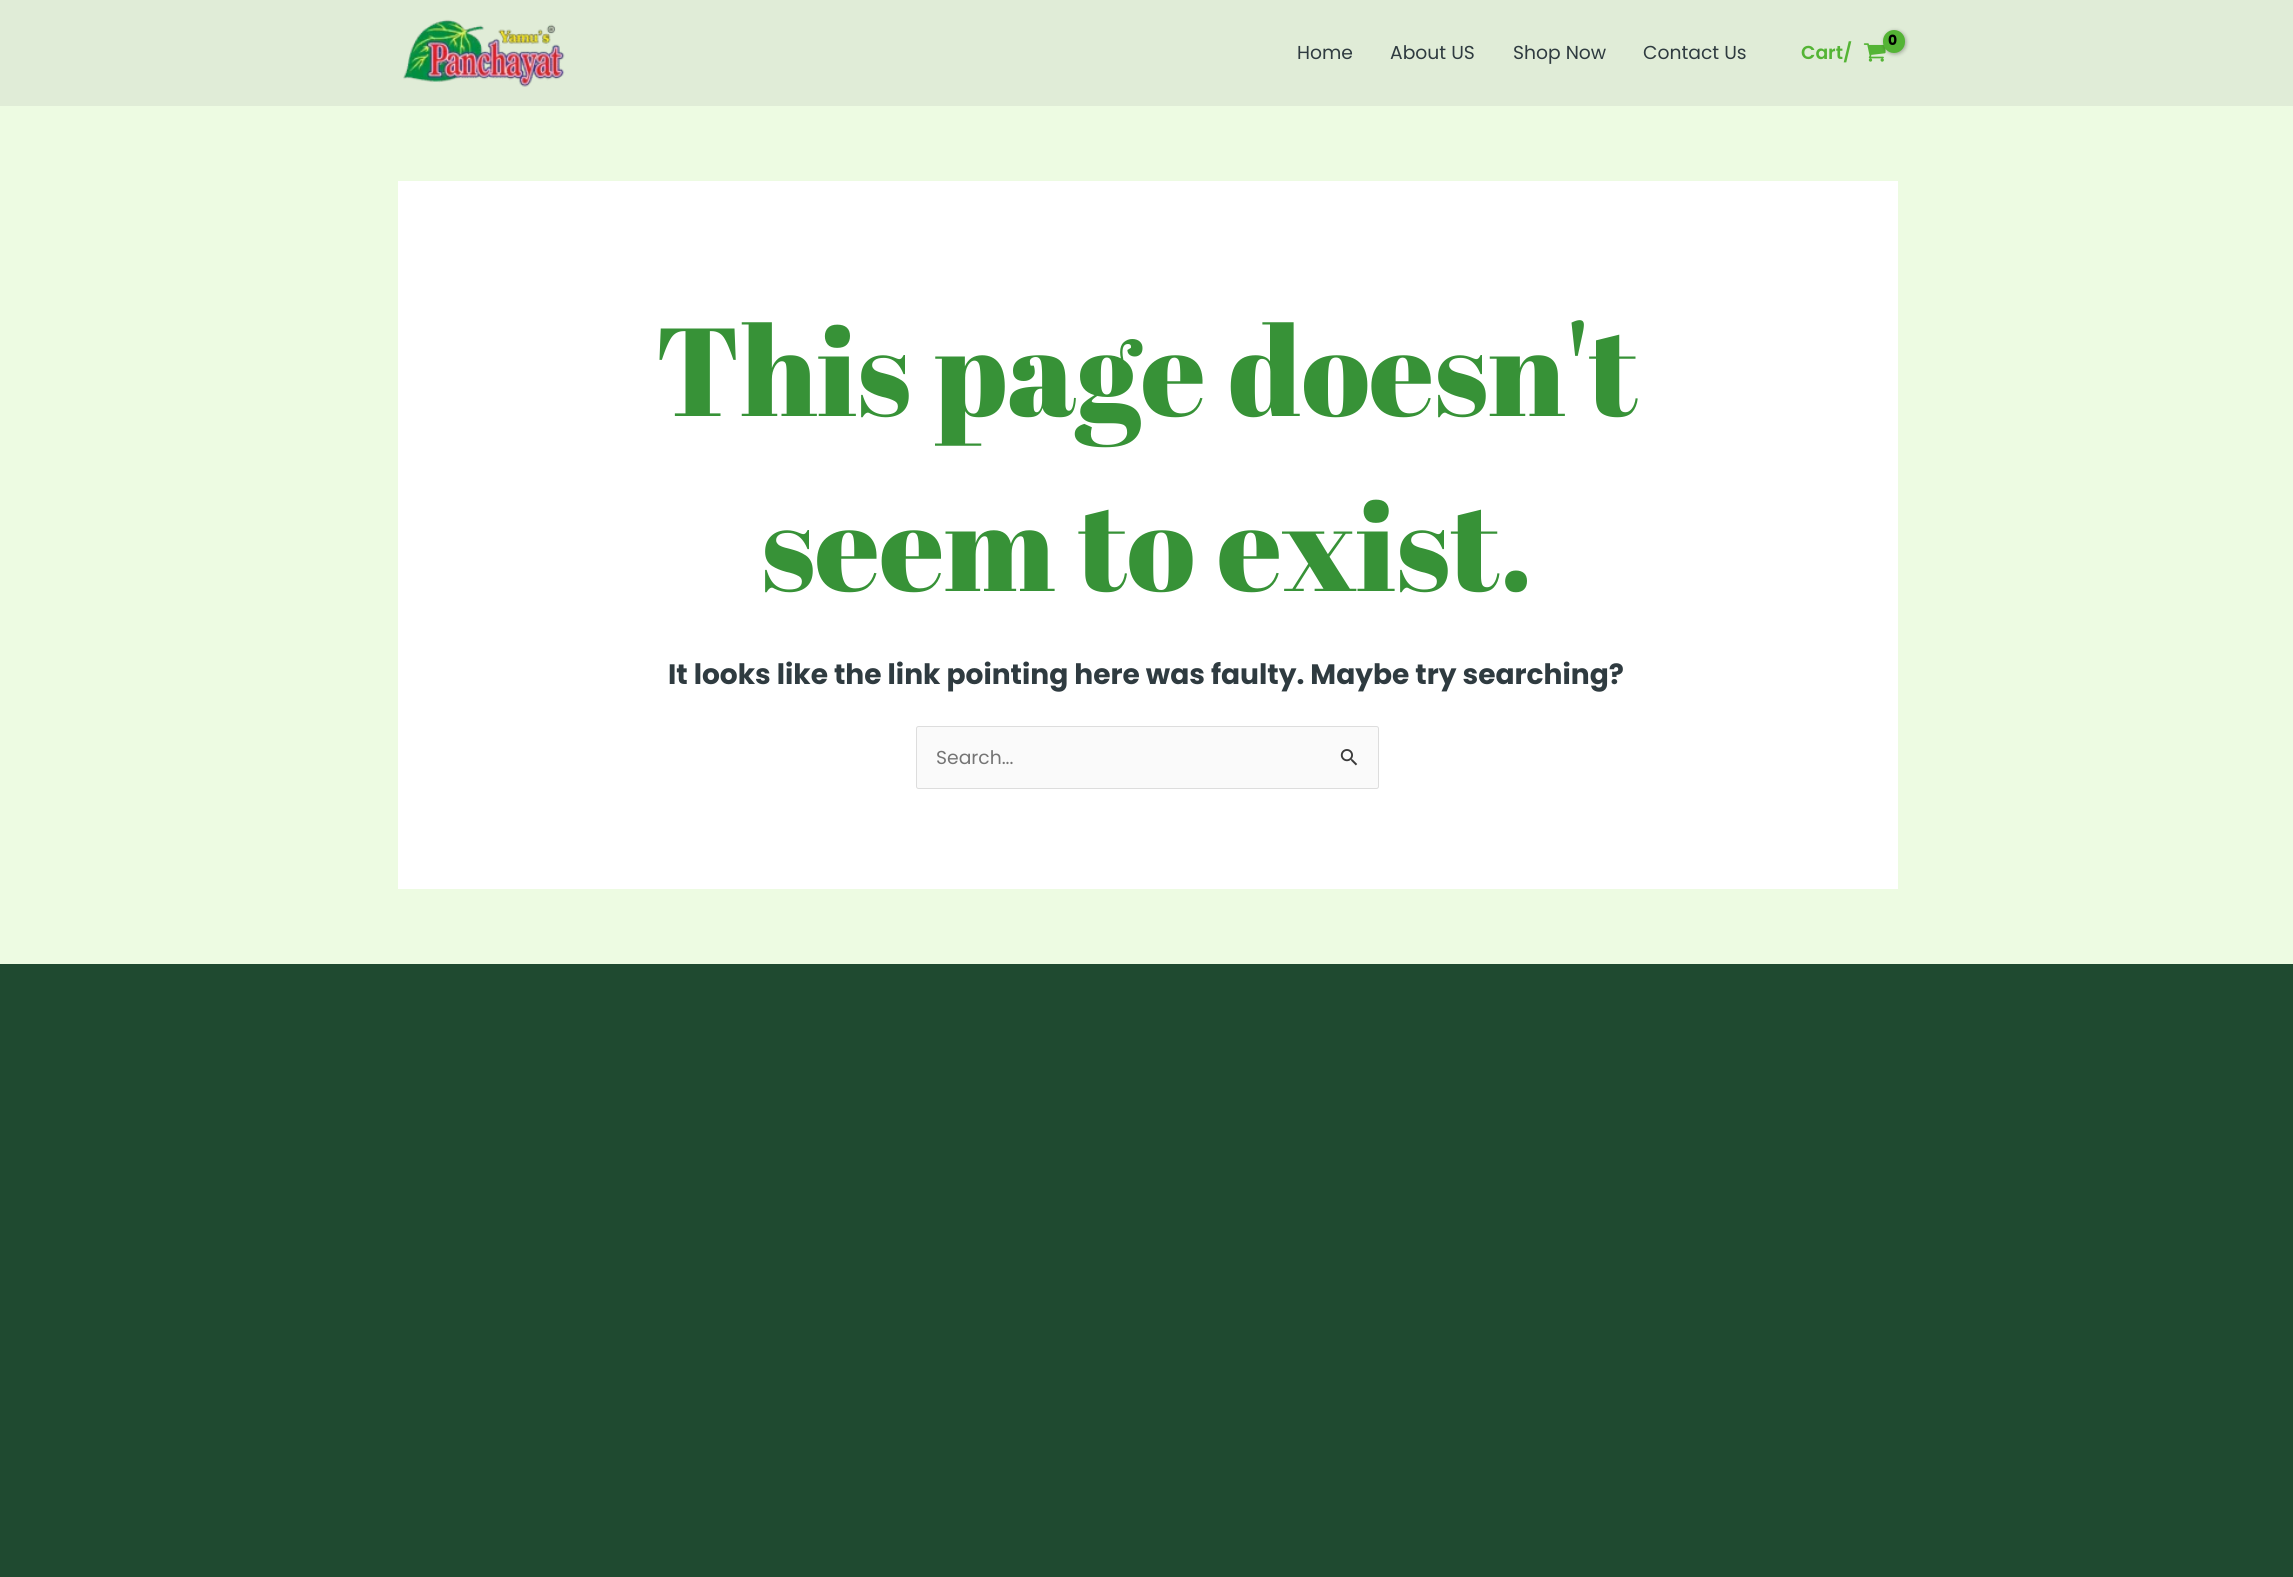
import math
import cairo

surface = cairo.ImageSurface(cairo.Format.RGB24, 2293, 1577)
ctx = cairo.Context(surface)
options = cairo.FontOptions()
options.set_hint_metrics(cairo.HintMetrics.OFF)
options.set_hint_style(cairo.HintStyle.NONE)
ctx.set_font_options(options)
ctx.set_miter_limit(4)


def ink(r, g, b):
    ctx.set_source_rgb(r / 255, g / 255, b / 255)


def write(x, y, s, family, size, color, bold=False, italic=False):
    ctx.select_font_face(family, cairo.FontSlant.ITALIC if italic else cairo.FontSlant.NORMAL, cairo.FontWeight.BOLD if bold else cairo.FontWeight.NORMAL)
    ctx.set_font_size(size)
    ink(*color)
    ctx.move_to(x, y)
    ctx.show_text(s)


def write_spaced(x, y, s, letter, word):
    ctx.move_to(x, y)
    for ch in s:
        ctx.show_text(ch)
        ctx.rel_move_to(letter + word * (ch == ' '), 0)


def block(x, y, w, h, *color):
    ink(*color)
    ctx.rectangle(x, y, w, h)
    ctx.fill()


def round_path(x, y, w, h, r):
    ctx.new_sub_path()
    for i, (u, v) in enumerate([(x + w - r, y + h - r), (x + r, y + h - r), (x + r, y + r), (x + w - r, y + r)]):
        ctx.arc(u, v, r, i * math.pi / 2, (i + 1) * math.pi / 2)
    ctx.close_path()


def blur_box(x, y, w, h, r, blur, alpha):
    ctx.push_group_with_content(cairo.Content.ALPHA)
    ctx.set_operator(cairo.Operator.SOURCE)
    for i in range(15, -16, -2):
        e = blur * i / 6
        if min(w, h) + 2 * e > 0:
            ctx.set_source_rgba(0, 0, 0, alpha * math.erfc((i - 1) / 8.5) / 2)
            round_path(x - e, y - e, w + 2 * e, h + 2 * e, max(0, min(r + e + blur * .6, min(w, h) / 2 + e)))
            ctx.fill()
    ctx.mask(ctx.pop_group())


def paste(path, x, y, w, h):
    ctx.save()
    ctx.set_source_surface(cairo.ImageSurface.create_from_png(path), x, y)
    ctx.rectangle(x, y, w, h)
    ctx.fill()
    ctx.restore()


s1 = dict(family="Poppins", size=18.75, color=(47, 59, 64))
s2 = dict(family="Poppins SemiBold", size=18.75, color=(84, 180, 53))
s3 = dict(family="Abril Fatface", size=125, color=(55, 146, 55))
s4 = dict(family="Poppins", size=28.1, color=(47, 59, 64), bold=True)
s5 = dict(family="Poppins", size=18.75, color=(117, 117, 117))

ink(237, 251, 226)
ctx.paint()
block(0, 0, 2293, 106, 224, 236, 215)
paste("pic1.png", 403, 19, 162, 68)
write(1297, 59, "Home", **s1)
write(1390, 59, "About US", **s1)
write(1513, 59, "Shop Now", **s1)
write(1643, 59, "Contact Us", **s1)
paste("pic2.png", 1863, 43, 23, 19)
ink(0, 0, 0)
blur_box(1884, 31, 22, 23, 11, 2, 0.3)
ink(84, 180, 53)
round_path(1883, 30, 22, 23, 11)
ctx.fill()
ctx.select_font_face("Poppins", cairo.FontSlant.NORMAL, cairo.FontWeight.BOLD)
ctx.set_font_size(14)
ink(0, 0, 0)
write_spaced(1888, 45, "0", -1, 0)
write(1801, 59, "Cart/", **s2)
block(398, 181, 1500, 708, 255, 255, 255)
write(655, 416, "This page doesn't", **s3)
write(761, 591, "seem to exist.", **s3)
write(668, 684, "It looks like the link pointing here was faulty. Maybe try searching?", **s4)
ink(250, 250, 250)
round_path(916.5, 726.5, 462, 62, 2)
ctx.fill_preserve()
ink(221, 221, 221)
ctx.set_line_width(1)
ctx.stroke()
write(936, 764, "Search...", **s5)
paste("pic3.png", 1340, 749, 18, 17)
block(0, 964, 2293, 613, 31, 74, 48)
surface.write_to_png("screenshot.png")
